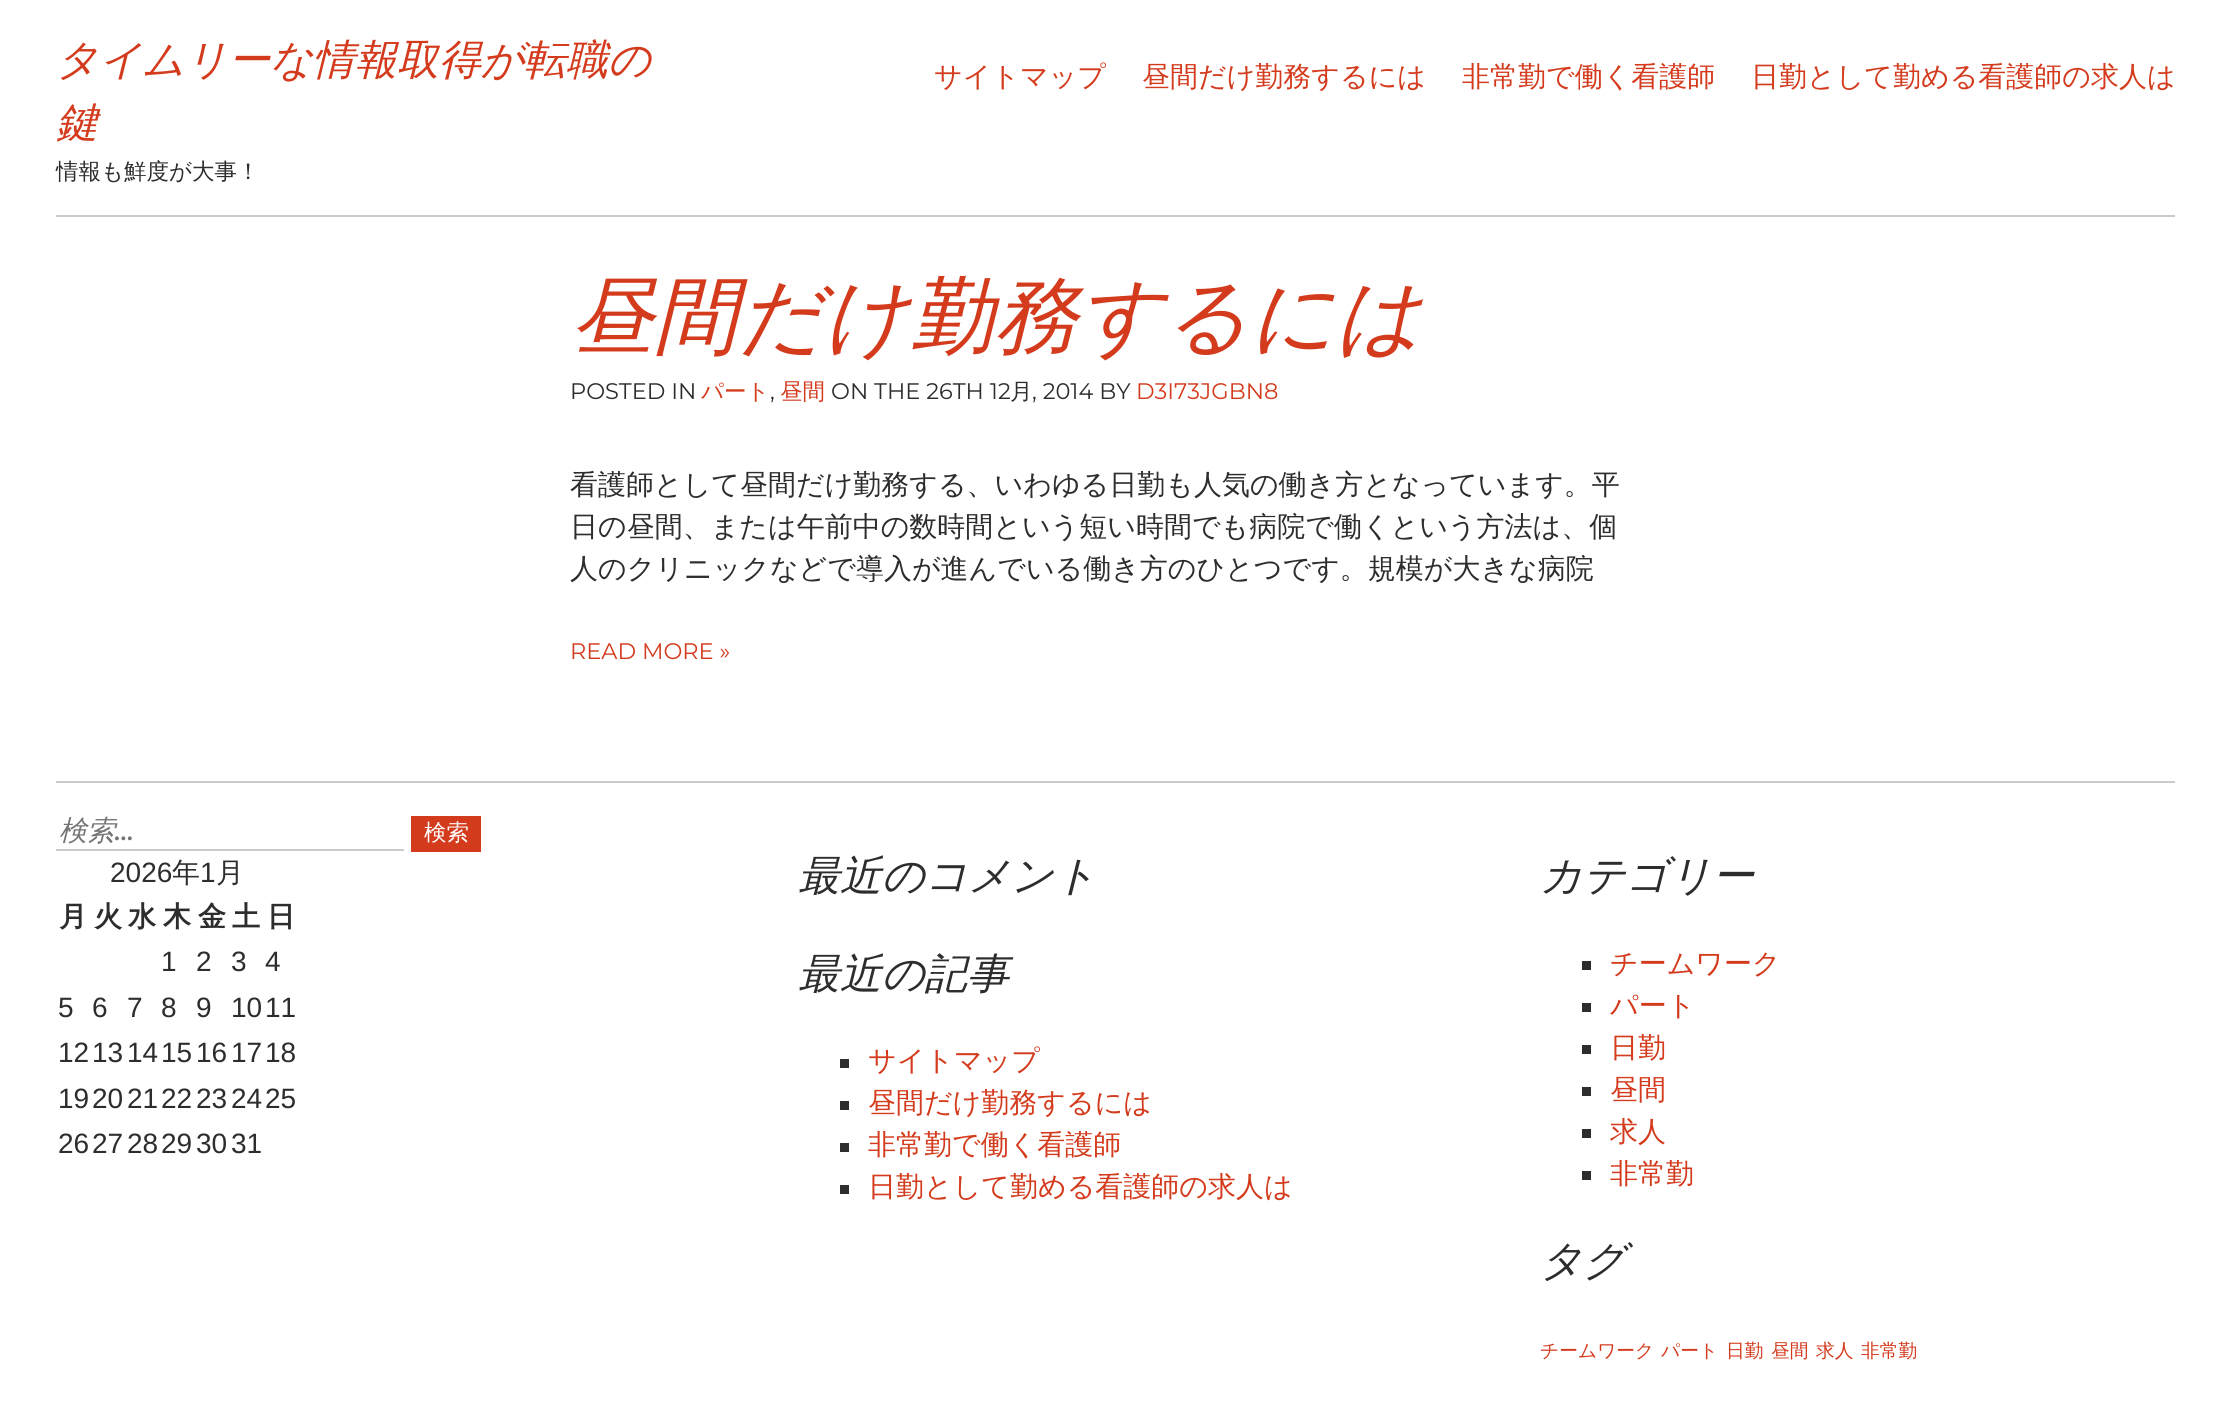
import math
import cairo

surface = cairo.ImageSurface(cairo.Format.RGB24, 2231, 1401)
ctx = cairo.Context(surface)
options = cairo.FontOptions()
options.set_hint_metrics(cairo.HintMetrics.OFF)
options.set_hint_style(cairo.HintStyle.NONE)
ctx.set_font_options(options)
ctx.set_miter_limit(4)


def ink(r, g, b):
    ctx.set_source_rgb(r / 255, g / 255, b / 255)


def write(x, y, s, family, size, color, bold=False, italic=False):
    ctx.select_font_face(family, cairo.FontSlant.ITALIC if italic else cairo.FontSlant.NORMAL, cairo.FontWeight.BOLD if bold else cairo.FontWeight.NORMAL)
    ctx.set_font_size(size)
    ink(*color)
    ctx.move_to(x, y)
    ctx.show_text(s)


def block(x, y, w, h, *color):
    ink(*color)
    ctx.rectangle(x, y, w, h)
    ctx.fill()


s1 = dict(family="WenQuanYi Zen Hei Medium", size=42, color=(212, 59, 29), italic=True)
s2 = dict(family="WenQuanYi Zen Hei Medium", size=22.5, color=(45, 45, 45))
s3 = dict(family="WenQuanYi Zen Hei Medium", size=28, color=(212, 59, 29))
s4 = dict(family="WenQuanYi Zen Hei Medium", size=84, color=(212, 59, 29), italic=True)
s5 = dict(family="Montserrat Thin", size=22.5, color=(45, 45, 45))
s6 = dict(family="WenQuanYi Zen Hei Medium", size=22.5, color=(212, 59, 29))
s7 = dict(family="Montserrat Thin", size=22.5, color=(212, 59, 29))
s8 = dict(family="WenQuanYi Zen Hei Medium", size=28, color=(45, 45, 45))
s9 = dict(family="WenQuanYi Zen Hei Medium", size=28, color=(117, 117, 117), italic=True)
s10 = dict(family="Libre Baskerville", size=28, color=(117, 117, 117), italic=True)
s11 = dict(family="WenQuanYi Zen Hei Medium", size=22.5, color=(255, 255, 255))
s12 = dict(family="Liberation Sans", size=28, color=(45, 45, 45))
s13 = dict(family="WenQuanYi Zen Hei", size=28, color=(45, 45, 45), bold=True)
s14 = dict(family="WenQuanYi Zen Hei Medium", size=42, color=(45, 45, 45), italic=True)
s15 = dict(family="WenQuanYi Zen Hei Medium", size=18.75, color=(212, 59, 29))

ink(255, 255, 255)
ctx.paint()
block(56, 215, 2119, 2, 203, 203, 203)
write(56, 74, "タイムリーな情報取得が転職の", **s1)
write(56, 137, "鍵", **s1)
write(56, 179, "情報も鮮度が大事！", **s2)
write(934, 86, "サイトマップ", **s3)
write(1142, 86, "昼間だけ勤務するには", **s3)
write(1462, 86, "非常勤で働く看護師", **s3)
write(1751, 86, "日勤として勤める看護師の求人は", **s3)
write(570, 345, "昼間だけ勤務するには", **s4)
write(570, 399, "POSTED IN", **s5)
write(701, 399, "パート", **s6)
write(770, 399, ",", **s5)
write(780, 399, "昼間", **s6)
write(831, 399, "ON THE 26TH 12", **s5)
write(1010, 399, "月", **s2)
write(1032, 399, ", 2014 BY", **s5)
write(1136, 399, "D3I73JGBN8", **s7)
write(570, 494, "看護師として昼間だけ勤務する、いわゆる日勤も人気の働き方となっています。平", **s8)
write(570, 536, "日の昼間、または午前中の数時間という短い時間でも病院で働くという方法は、個", **s8)
write(570, 578, "人のクリニックなどで導入が進んでいる働き方のひとつです。規模が大きな病院", **s8)
write(570, 659, "READ MORE »", **s7)
block(56, 781, 2119, 2, 203, 203, 203)
block(56, 849, 348, 2, 203, 203, 203)
write(59, 840, "検索", **s9)
write(115, 840, "…", **s10)
block(411, 816, 70, 36, 212, 59, 29)
write(424, 840, "検索", **s11)
write(110, 882, "2026", **s12)
write(172, 882, "年", **s8)
write(200, 882, "1", **s12)
write(216, 882, "月", **s8)
write(59, 926, "月", **s13)
write(94, 926, "火", **s13)
write(128, 926, "水", **s13)
write(163, 926, "木", **s13)
write(198, 926, "金", **s13)
write(232, 926, "土", **s13)
write(267, 926, "日", **s13)
write(161, 971, "1", **s12)
write(196, 971, "2", **s12)
write(231, 971, "3", **s12)
write(265, 971, "4", **s12)
write(58, 1017, "5", **s12)
write(92, 1017, "6", **s12)
write(127, 1017, "7", **s12)
write(161, 1017, "8", **s12)
write(196, 1017, "9", **s12)
write(231, 1017, "10", **s12)
write(265, 1017, "11", **s12)
write(58, 1062, "12", **s12)
write(92, 1062, "13", **s12)
write(127, 1062, "14", **s12)
write(161, 1062, "15", **s12)
write(196, 1062, "16", **s12)
write(231, 1062, "17", **s12)
write(265, 1062, "18", **s12)
write(58, 1108, "19", **s12)
write(92, 1108, "20", **s12)
write(127, 1108, "21", **s12)
write(161, 1108, "22", **s12)
write(196, 1108, "23", **s12)
write(231, 1108, "24", **s12)
write(265, 1108, "25", **s12)
write(58, 1153, "26", **s12)
write(92, 1153, "27", **s12)
write(127, 1153, "28", **s12)
write(161, 1153, "29", **s12)
write(196, 1153, "30", **s12)
write(231, 1153, "31", **s12)
write(798, 890, "最近のコメント", **s14)
write(798, 988, "最近の記事", **s14)
block(840, 1059, 9, 9, 45, 45, 45)
write(868, 1070, "サイトマップ", **s3)
block(840, 1101, 9, 9, 45, 45, 45)
write(868, 1112, "昼間だけ勤務するには", **s3)
block(840, 1143, 9, 9, 45, 45, 45)
write(868, 1154, "非常勤で働く看護師", **s3)
block(840, 1185, 9, 9, 45, 45, 45)
write(868, 1196, "日勤として勤める看護師の求人は", **s3)
write(1540, 890, "カテゴリー", **s14)
block(1582, 961, 9, 9, 45, 45, 45)
write(1610, 973, "チームワーク", **s3)
block(1582, 1003, 9, 9, 45, 45, 45)
write(1610, 1015, "パート", **s3)
block(1582, 1045, 9, 9, 45, 45, 45)
write(1610, 1057, "日勤", **s3)
block(1582, 1087, 9, 9, 45, 45, 45)
write(1610, 1099, "昼間", **s3)
block(1582, 1129, 9, 9, 45, 45, 45)
write(1610, 1141, "求人", **s3)
block(1582, 1171, 9, 9, 45, 45, 45)
write(1610, 1183, "非常勤", **s3)
write(1540, 1275, "タグ", **s14)
write(1540, 1357, "チームワーク", **s15)
write(1661, 1357, "パート", **s15)
write(1726, 1357, "日勤", **s15)
write(1771, 1357, "昼間", **s15)
write(1816, 1357, "求人", **s15)
write(1861, 1357, "非常勤", **s15)
surface.write_to_png("screenshot.png")
